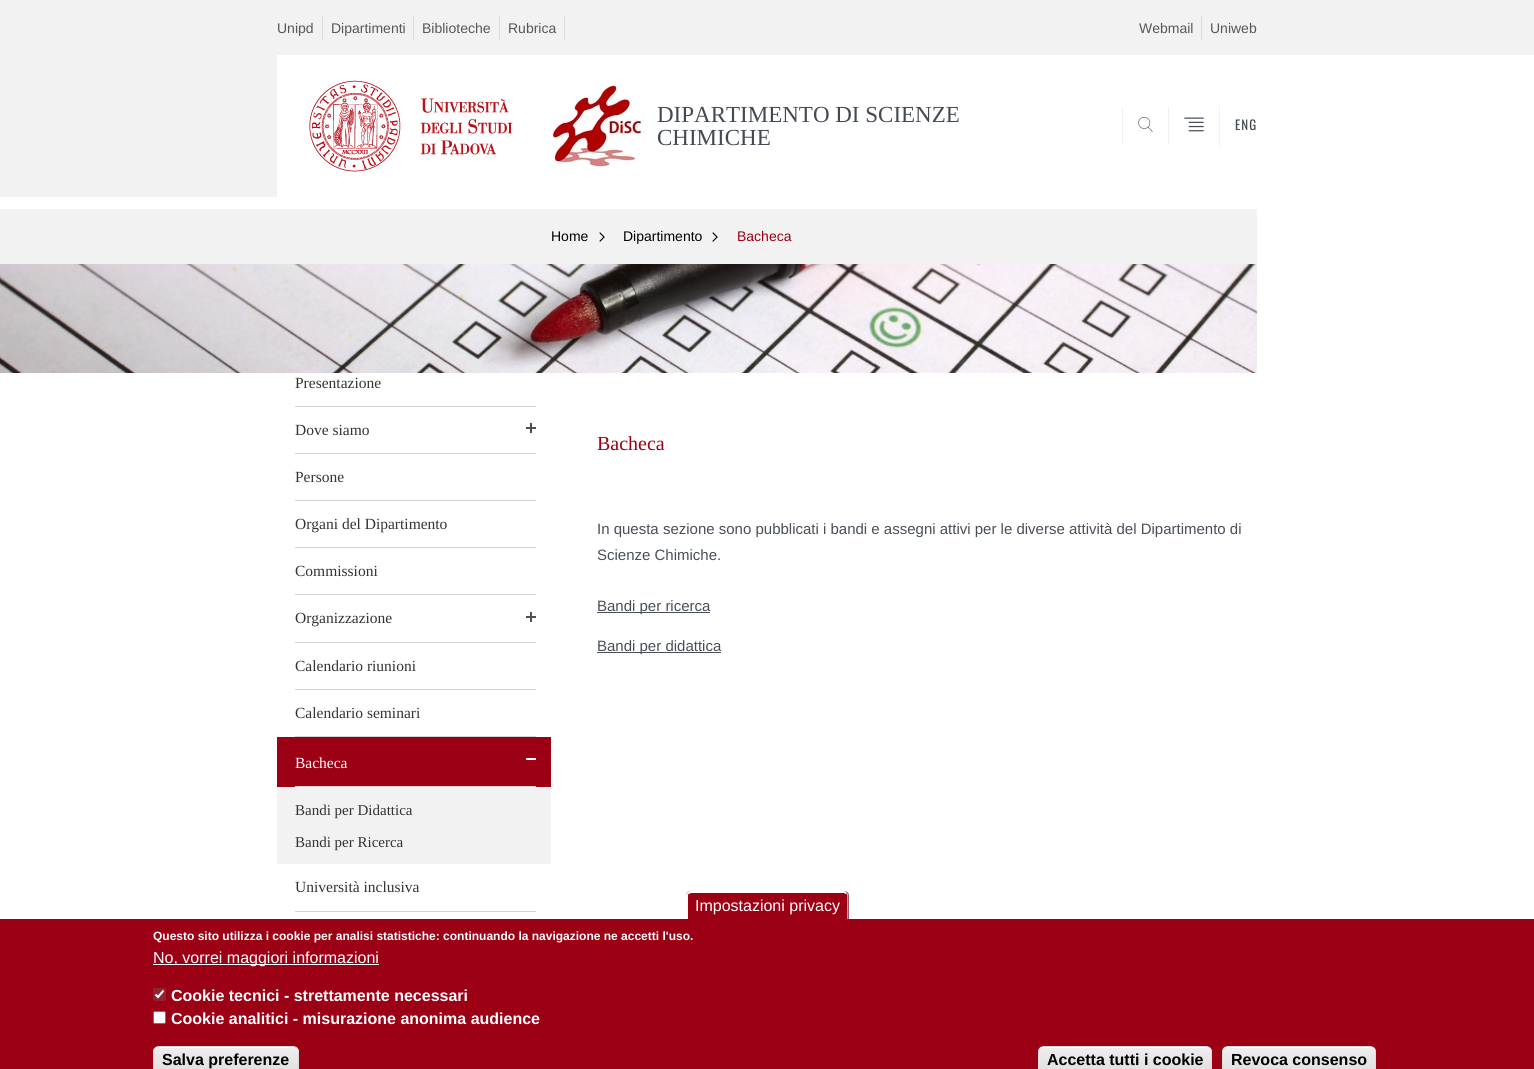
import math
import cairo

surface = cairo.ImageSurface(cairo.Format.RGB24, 1534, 1069)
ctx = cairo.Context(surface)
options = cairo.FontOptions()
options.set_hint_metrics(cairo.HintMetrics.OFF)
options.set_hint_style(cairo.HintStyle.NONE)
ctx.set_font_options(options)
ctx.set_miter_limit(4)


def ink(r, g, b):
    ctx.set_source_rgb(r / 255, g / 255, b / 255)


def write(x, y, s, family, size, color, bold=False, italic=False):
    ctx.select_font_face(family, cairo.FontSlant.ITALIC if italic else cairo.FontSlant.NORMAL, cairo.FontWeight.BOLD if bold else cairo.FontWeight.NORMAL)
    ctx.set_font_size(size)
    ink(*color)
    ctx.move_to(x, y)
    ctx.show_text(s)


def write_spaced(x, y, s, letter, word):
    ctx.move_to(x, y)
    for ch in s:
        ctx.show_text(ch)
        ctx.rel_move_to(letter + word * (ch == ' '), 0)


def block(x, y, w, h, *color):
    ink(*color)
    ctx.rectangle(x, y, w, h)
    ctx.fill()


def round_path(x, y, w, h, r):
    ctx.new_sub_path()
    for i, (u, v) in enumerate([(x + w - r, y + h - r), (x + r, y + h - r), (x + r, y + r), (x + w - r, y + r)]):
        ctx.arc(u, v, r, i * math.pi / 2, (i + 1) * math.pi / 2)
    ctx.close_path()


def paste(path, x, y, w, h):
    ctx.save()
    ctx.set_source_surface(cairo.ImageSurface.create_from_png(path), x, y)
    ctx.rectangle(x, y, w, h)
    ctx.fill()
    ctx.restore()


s1 = dict(family="Liberation Sans", size=14, color=(87, 87, 87))
s2 = dict(family="Liberation Serif", size=23, color=(67, 74, 83))
s3 = dict(family="Liberation Sans", size=14, color=(0, 0, 0))
s4 = dict(family="Liberation Sans", size=14, color=(155, 0, 20))
s5 = dict(family="Liberation Serif", size=15.5, color=(51, 51, 51))
s6 = dict(family="Liberation Serif", size=15.5, color=(255, 255, 255))
s7 = dict(family="Liberation Serif", size=15, color=(51, 51, 51))
s8 = dict(family="Liberation Serif", size=20, color=(155, 0, 20))
s9 = dict(family="Liberation Sans", size=15, color=(72, 79, 89))
s10 = dict(family="Liberation Sans", size=16, color=(255, 255, 255))
s11 = dict(family="Liberation Sans", size=12, color=(255, 255, 255), bold=True)
s12 = dict(family="Liberation Sans", size=16, color=(255, 255, 255), bold=True)
s13 = dict(family="Liberation Sans", size=16, color=(0, 0, 0), bold=True)

ink(255, 255, 255)
ctx.paint()
block(0, 0, 1534, 197, 242, 242, 242)
block(322, 16, 1, 24, 220, 220, 220)
write(277, 33, "Unipd", **s1)
block(413, 16, 1, 24, 220, 220, 220)
write(331, 33, "Dipartimenti", **s1)
block(499, 16, 1, 24, 220, 220, 220)
write(422, 33, "Biblioteche", **s1)
block(564, 16, 1, 24, 220, 220, 220)
write(508, 33, "Rubrica", **s1)
block(1201, 16, 1, 24, 220, 220, 220)
write(1139, 33, "Webmail", **s1)
write(1210, 33, "Uniweb", **s1)
gradient = cairo.LinearGradient(0, 126, 1534, 126)
gradient.add_color_stop_rgba(0, 0.608, 0, 0.078, 0)
gradient.add_color_stop_rgba(0.5, 1, 1, 1, 0)
gradient.add_color_stop_rgba(0.51, 1, 1, 1, 1)
gradient.add_color_stop_rgba(1, 1, 1, 1, 1)
ctx.set_source(gradient)
ctx.rectangle(1257, 55, 277, 142)
ctx.fill()
block(277, 55, 980, 142, 255, 255, 255)
paste("pic1.png", 309, 80, 204, 92)
paste("pic2.png", 552, 85, 90, 82)
write(657, 122, "DIPARTIMENTO DI SCIENZE", **s2)
write(657, 145, "CHIMICHE", **s2)
block(1122, 107, 1, 38, 242, 242, 242)
paste("pic3.png", 1138, 116, 15, 16)
block(1168, 107, 1, 38, 242, 242, 242)
paste("pic4.png", 1184, 117, 20, 15)
block(1219, 105, 1, 42, 242, 242, 242)
ctx.select_font_face("Oswald")
ctx.set_font_size(13)
ink(67, 74, 83)
write_spaced(1235, 130, "ENG", 1, 0)
gradient = cairo.LinearGradient(0, 237, 1534, 236)
gradient.add_color_stop_rgba(0, 0.949, 0.949, 0.949, 1)
gradient.add_color_stop_rgba(0.5, 0.949, 0.949, 0.949, 1)
gradient.add_color_stop_rgba(0.51, 0.949, 0.949, 0.949, 0)
gradient.add_color_stop_rgba(1, 0.949, 0.949, 0.949, 0)
ctx.set_source(gradient)
ctx.rectangle(0, 209, 551, 55)
ctx.fill()
block(551, 209, 706, 55, 242, 242, 242)
write(551, 241, "Home", **s3)
paste("pic5.png", 599, 232, 6, 10)
write(623, 241, "Dipartimento", **s3)
paste("pic5.png", 712, 232, 6, 10)
write(737, 241, "Bacheca", **s4)
block(295, 406, 241, 1, 212, 212, 212)
write(295, 388, "Presentazione", **s5)
block(295, 453, 241, 1, 212, 212, 212)
write(295, 435, "Dove siamo", **s5)
paste("pic6.png", 526, 423, 10, 10)
block(295, 500, 241, 1, 212, 212, 212)
write(295, 482, "Persone", **s5)
block(295, 547, 241, 1, 212, 212, 212)
write(295, 529, "Organi del Dipartimento", **s5)
block(295, 594, 241, 1, 212, 212, 212)
write(295, 576, "Commissioni", **s5)
block(295, 642, 241, 1, 212, 212, 212)
write(295, 623, "Organizzazione", **s5)
paste("pic6.png", 526, 612, 10, 10)
block(295, 689, 241, 1, 212, 212, 212)
write(295, 671, "Calendario riunioni", **s5)
block(295, 736, 241, 1, 212, 212, 212)
write(295, 718, "Calendario seminari", **s5)
block(277, 737, 274, 50, 155, 0, 20)
block(295, 786, 241, 1, 212, 212, 212)
write(295, 768, "Bacheca", **s6)
block(526, 758, 10, 2, 255, 255, 255)
block(277, 787, 274, 77, 242, 242, 242)
write(295, 815, "Bandi per Didattica", **s7)
write(295, 847, "Bandi per Ricerca", **s7)
block(295, 911, 241, 1, 212, 212, 212)
write(295, 892, "Università inclusiva", **s5)
paste("pic7.png", 0, 264, 1257, 109)
write(597, 450, "Bacheca", **s8)
write(597, 534, "In questa sezione sono pubblicati i bandi e assegni attivi per le diverse attività del Dipartimento di", **s9)
write(597, 560, "Scienze Chimiche.", **s9)
block(597, 612, 113, 1, 72, 79, 89)
write(597, 611, "Bandi per ricerca", **s9)
block(597, 652, 124, 1, 72, 79, 89)
write(597, 651, "Bandi per didattica", **s9)
block(0, 919, 1534, 150, 155, 0, 20)
ctx.new_path()
ctx.move_to(691, 891)
ctx.line_to(844, 891)
ctx.curve_to(847, 891, 849, 893, 849, 896)
ctx.line_to(849, 919)
ctx.line_to(686, 919)
ctx.line_to(686, 896)
ctx.curve_to(686, 893, 688, 891, 691, 891)
ctx.close_path()
ctx.fill()
ink(255, 255, 255)
ctx.new_path()
ctx.move_to(691, 891)
ctx.line_to(844, 891)
ctx.line_to(847, 892)
ctx.line_to(846, 894)
ctx.line_to(844, 893)
ctx.line_to(691, 893)
ctx.line_to(689, 894)
ctx.line_to(687, 893)
ctx.curve_to(688, 892, 689, 891, 691, 891)
ctx.close_path()
ctx.fill()
ink(170, 170, 170)
ctx.new_path()
ctx.move_to(846, 893.5)
ctx.line_to(847, 892.5)
ctx.line_to(848.5, 894)
ctx.line_to(848.5, 919)
ctx.line_to(847, 919)
ctx.line_to(847, 896)
ctx.curve_to(847, 895, 846.5, 894, 846, 893.5)
ctx.close_path()
ctx.fill()
ink(255, 255, 255)
ctx.new_path()
ctx.move_to(686, 919)
ctx.line_to(688, 919)
ctx.line_to(688, 896)
ctx.curve_to(688, 895, 688, 894.5, 688.5, 894)
ctx.line_to(687, 892.5)
ctx.curve_to(686.5, 893.5, 686, 894.5, 686, 896)
ctx.close_path()
ctx.fill()
write(695, 911, "Impostazioni privacy", **s10)
write(153, 940, "Questo sito utilizza i cookie per analisi statistiche: continuando la navigazione ne accetti l'uso.", **s11)
block(153, 964, 226, 1, 255, 255, 255)
write(153, 963, "No, vorrei maggiori informazioni", **s10)
ink(144, 35, 49)
round_path(153, 988, 13, 13, 2)
ctx.fill()
ctx.new_path()
ctx.move_to(155.5, 994.5)
ctx.line_to(158, 997)
ctx.line_to(163.5, 990.5)
ink(255, 255, 255)
ctx.set_line_width(2.1)
ctx.stroke()
write(171, 1001, "Cookie tecnici - strettamente necessari", **s12)
round_path(153.5, 1011.5, 12, 12, 1.5)
ctx.fill_preserve()
ink(118, 118, 118)
ctx.set_line_width(1)
ctx.stroke()
write(171, 1024, "Cookie analitici - misurazione anonima audience", **s12)
ctx.save()
round_path(153, 1046, 146, 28, 6)
ctx.clip()
gradient = cairo.LinearGradient(226, 1047, 226, 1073)
gradient.add_color_stop_rgba(0.05, 0.929, 0.929, 0.929, 1)
gradient.add_color_stop_rgba(1, 0.875, 0.875, 0.875, 1)
ctx.set_source(gradient)
ctx.rectangle(153, 1047, 146, 22)
ctx.fill()
ctx.restore()
ctx.new_path()
ctx.move_to(159, 1048)
ctx.line_to(293, 1048)
ctx.curve_to(296, 1048, 298, 1050, 298, 1053)
ctx.line_to(298, 1052)
ctx.curve_to(298, 1049, 296, 1047, 293, 1047)
ctx.line_to(159, 1047)
ctx.curve_to(156, 1047, 154, 1049, 154, 1052)
ctx.line_to(154, 1053)
ctx.curve_to(154, 1050, 156, 1048, 159, 1048)
ctx.close_path()
ctx.fill()
round_path(153.5, 1046.5, 145, 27, 5.5)
ink(220, 220, 220)
ctx.stroke()
write(162, 1065, "Salva preferenze", **s13)
ctx.save()
round_path(1038, 1046, 174, 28, 6)
ctx.clip()
gradient = cairo.LinearGradient(1125, 1047, 1125, 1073)
gradient.add_color_stop_rgba(0.05, 0.929, 0.929, 0.929, 1)
gradient.add_color_stop_rgba(1, 0.875, 0.875, 0.875, 1)
ctx.set_source(gradient)
ctx.rectangle(1038, 1047, 174, 22)
ctx.fill()
ctx.restore()
ink(255, 255, 255)
ctx.new_path()
ctx.move_to(1044, 1048)
ctx.line_to(1206, 1048)
ctx.curve_to(1209, 1048, 1211, 1050, 1211, 1053)
ctx.curve_to(1211, 1050, 1210, 1048, 1207, 1047)
ctx.line_to(1044, 1047)
ctx.curve_to(1041, 1047, 1039, 1050, 1039, 1053)
ctx.curve_to(1039, 1050, 1041, 1048, 1044, 1048)
ctx.close_path()
ctx.fill()
round_path(1038.5, 1046.5, 173, 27, 5.5)
ink(220, 220, 220)
ctx.stroke()
write(1047, 1065, "Accetta tutti i cookie", **s13)
ctx.save()
round_path(1222, 1046, 154, 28, 6)
ctx.clip()
gradient = cairo.LinearGradient(1299, 1047, 1299, 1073)
gradient.add_color_stop_rgba(0.05, 0.929, 0.929, 0.929, 1)
gradient.add_color_stop_rgba(1, 0.875, 0.875, 0.875, 1)
ctx.set_source(gradient)
ctx.rectangle(1222, 1047, 154, 22)
ctx.fill()
ctx.restore()
ink(255, 255, 255)
ctx.new_path()
ctx.move_to(1228, 1048)
ctx.line_to(1370, 1048)
ctx.curve_to(1373, 1048, 1375, 1050, 1375, 1053)
ctx.line_to(1375, 1052)
ctx.curve_to(1375, 1049, 1373, 1047, 1370, 1047)
ctx.line_to(1228, 1047)
ctx.curve_to(1225, 1047, 1223, 1049, 1223, 1052)
ctx.line_to(1223, 1053)
ctx.curve_to(1223, 1050, 1225, 1048, 1228, 1048)
ctx.close_path()
ctx.fill()
round_path(1222.5, 1046.5, 153, 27, 5.5)
ink(220, 220, 220)
ctx.stroke()
write(1231, 1065, "Revoca consenso", **s13)
surface.write_to_png("screenshot.png")
